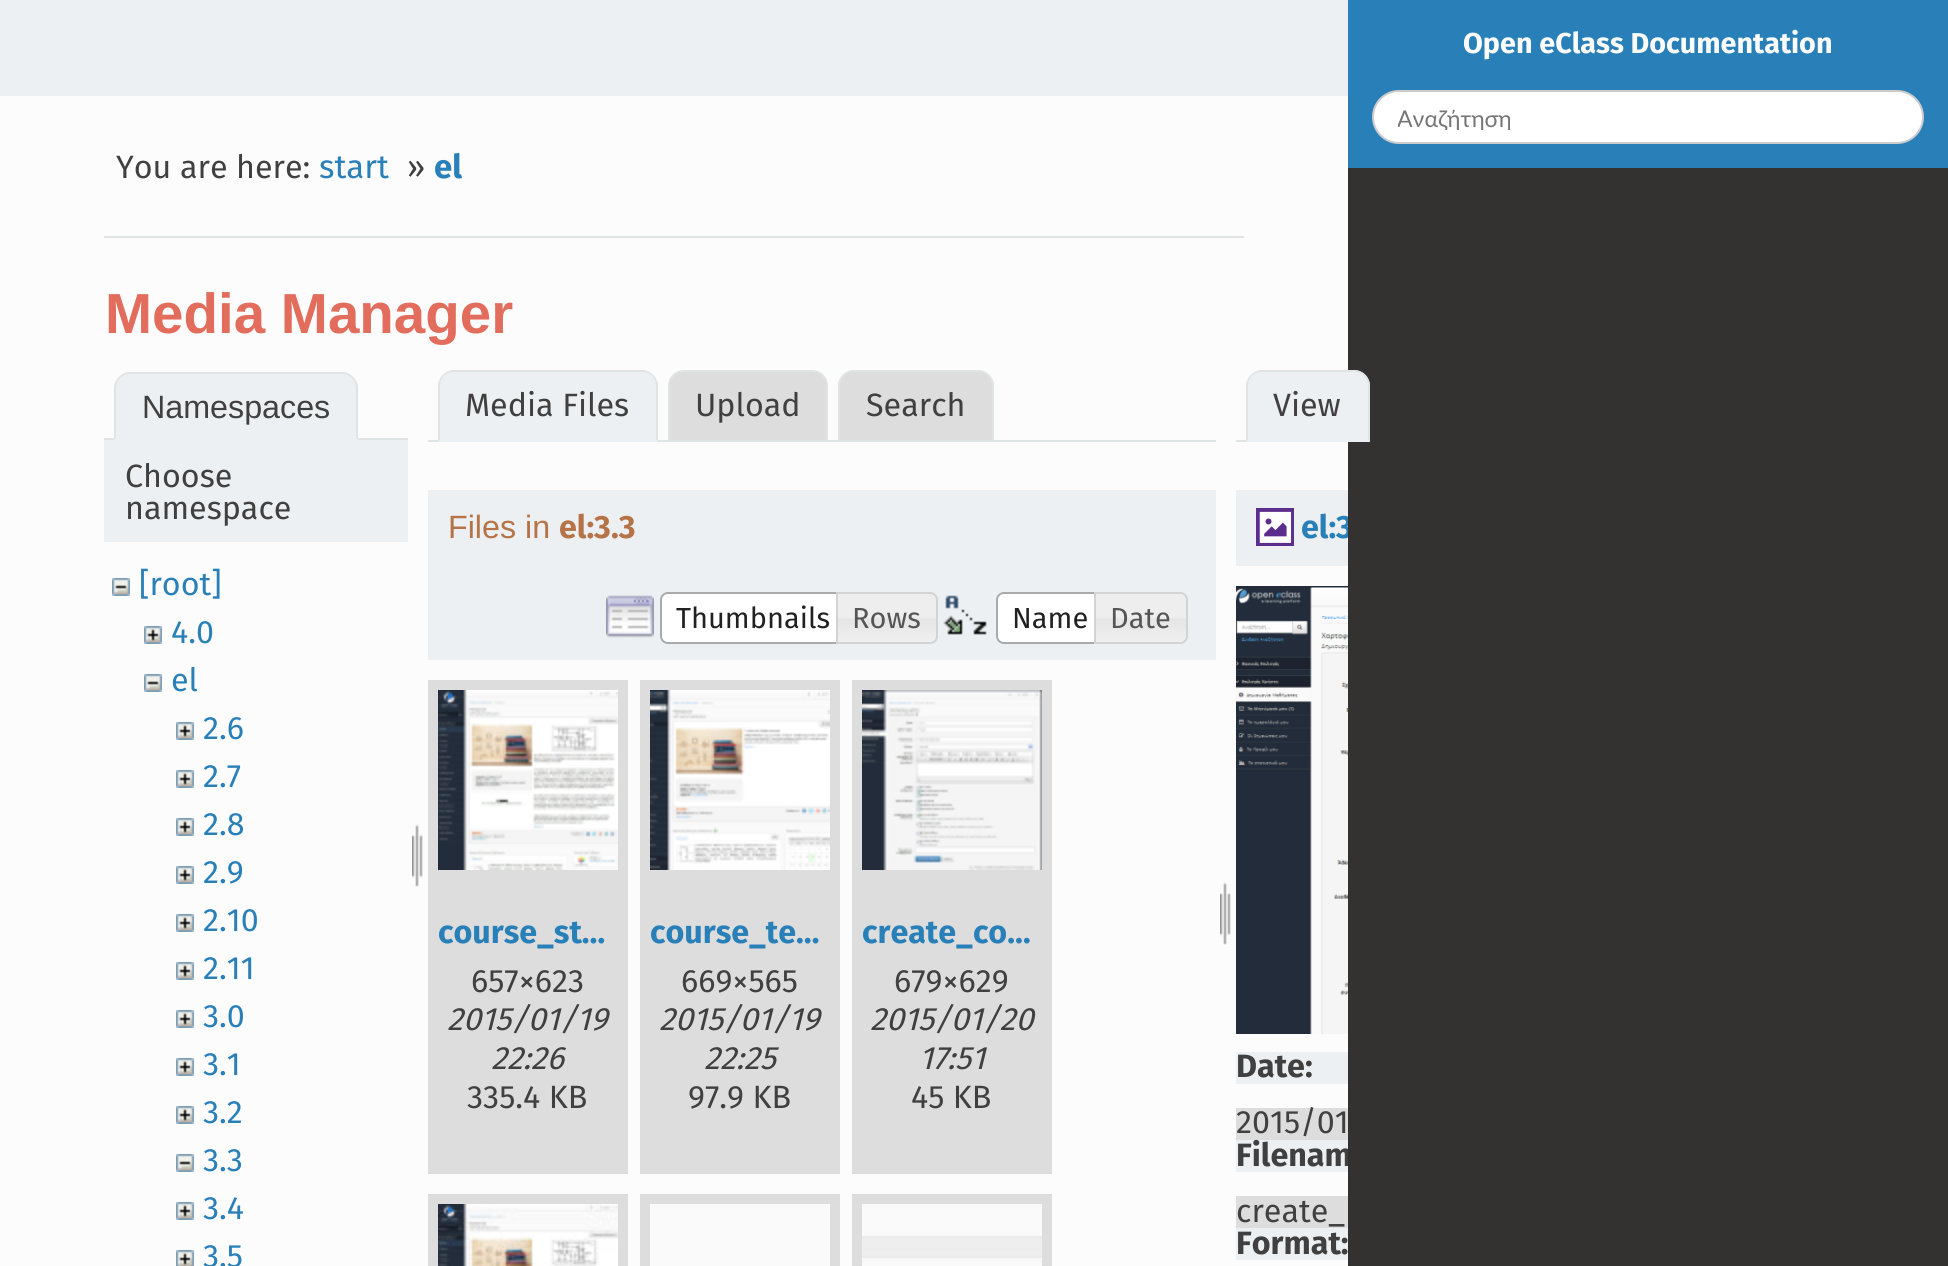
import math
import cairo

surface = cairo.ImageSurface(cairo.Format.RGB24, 1948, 1266)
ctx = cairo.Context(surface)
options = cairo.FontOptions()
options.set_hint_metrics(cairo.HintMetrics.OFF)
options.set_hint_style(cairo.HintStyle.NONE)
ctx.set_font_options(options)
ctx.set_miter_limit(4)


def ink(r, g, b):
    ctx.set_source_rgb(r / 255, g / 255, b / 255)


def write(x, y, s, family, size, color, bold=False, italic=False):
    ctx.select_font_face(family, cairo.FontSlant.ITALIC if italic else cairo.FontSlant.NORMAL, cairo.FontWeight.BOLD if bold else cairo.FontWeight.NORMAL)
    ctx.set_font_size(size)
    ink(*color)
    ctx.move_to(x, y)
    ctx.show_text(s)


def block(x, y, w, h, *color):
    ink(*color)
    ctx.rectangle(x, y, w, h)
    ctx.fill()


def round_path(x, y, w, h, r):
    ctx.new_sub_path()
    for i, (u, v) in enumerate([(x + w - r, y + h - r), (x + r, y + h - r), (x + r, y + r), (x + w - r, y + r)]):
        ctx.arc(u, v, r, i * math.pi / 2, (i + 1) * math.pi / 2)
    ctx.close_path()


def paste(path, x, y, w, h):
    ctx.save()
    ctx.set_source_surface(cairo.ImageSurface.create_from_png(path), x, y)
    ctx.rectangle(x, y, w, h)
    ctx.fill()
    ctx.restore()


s1 = dict(family="Fira Sans", size=32.25, color=(41, 128, 185), bold=True)
s2 = dict(family="Fira Sans", size=32.25, color=(64, 64, 64), bold=True)
s3 = dict(family="Fira Sans", size=28.75, color=(252, 252, 252), bold=True)
s4 = dict(family="Lato", size=23, color=(117, 117, 117))
s5 = dict(family="Fira Sans", size=32.25, color=(64, 64, 64))
s6 = dict(family="Fira Sans", size=33, color=(41, 128, 185))
s7 = dict(family="Fira Sans", size=33, color=(41, 128, 185), bold=True)
s8 = dict(family="Liberation Sans", size=56.5, color=(226, 109, 92), bold=True)
s9 = dict(family="Liberation Sans", size=32.25, color=(64, 64, 64))
s10 = dict(family="Fira Sans", size=32.25, color=(41, 128, 185))
s11 = dict(family="Liberation Sans", size=32.25, color=(181, 115, 71))
s12 = dict(family="Fira Sans", size=32.25, color=(181, 115, 71), bold=True)
s13 = dict(family="Fira Sans", size=29, color=(33, 33, 33))
s14 = dict(family="Fira Sans", size=29, color=(85, 85, 85))
s15 = dict(family="Fira Sans", size=32.25, color=(64, 64, 64), italic=True)

ink(237, 240, 242)
ctx.paint()
block(0, 96, 1348, 1170, 252, 252, 252)
block(1236, 490, 112, 76, 237, 240, 242)
write(1301, 538, "el:3", **s1)
block(1236, 1108, 112, 32, 221, 221, 221)
block(1236, 1140, 112, 32, 237, 240, 242)
write(1236, 1166, "Filenam", **s2)
block(1348, 168, 600, 1098, 52, 49, 49)
block(1348, 0, 600, 168, 41, 128, 185)
write(1463, 53, "Open eClass Documentation", **s3)
ink(255, 255, 255)
round_path(1373, 91, 550, 52, 26)
ctx.fill_preserve()
ink(204, 204, 204)
ctx.stroke()
ctx.save()
ctx.rectangle(1398, 104, 500, 26)
ctx.clip()
write(1397, 127, "Αναζήτηση", **s4)
ctx.restore()
write(116, 178, "You are here:", **s5)
write(319, 178, "start", **s6)
write(407, 178, "»", **s5)
write(434, 178, "el", **s7)
block(104, 236, 1140, 2, 225, 228, 229)
write(105, 333, "Media Manager", **s8)
block(104, 438, 304, 2, 225, 228, 229)
ink(237, 240, 242)
ctx.new_path()
ctx.move_to(130, 372)
ctx.line_to(342, 372)
ctx.curve_to(351, 372, 358, 379, 358, 388)
ctx.line_to(358, 440)
ctx.line_to(114, 440)
ctx.line_to(114, 388)
ctx.curve_to(114, 379, 121, 372, 130, 372)
ctx.close_path()
ctx.fill()
ink(225, 228, 229)
ctx.new_path()
ctx.move_to(130, 372)
ctx.curve_to(126, 372, 122, 374, 119, 377)
ctx.line_to(120, 378)
ctx.curve_to(122, 376, 126, 374, 130, 374)
ctx.line_to(342, 374)
ctx.curve_to(346, 374, 350, 376, 352, 378)
ctx.line_to(353, 377)
ctx.curve_to(350, 374, 346, 372, 342, 372)
ctx.close_path()
ctx.fill()
ctx.new_path()
ctx.move_to(358, 440)
ctx.line_to(358, 388)
ctx.curve_to(358, 384, 356, 380, 353, 377)
ctx.line_to(352, 378)
ctx.curve_to(354, 380, 356, 384, 356, 388)
ctx.line_to(356, 438)
ctx.close_path()
ctx.fill()
ink(237, 240, 242)
ctx.new_path()
ctx.move_to(358, 440)
ctx.line_to(356, 438)
ctx.line_to(116, 438)
ctx.line_to(114, 440)
ctx.close_path()
ctx.fill()
ink(225, 228, 229)
ctx.new_path()
ctx.move_to(114, 440)
ctx.line_to(116, 438)
ctx.line_to(116, 388)
ctx.curve_to(116, 384, 118, 380, 120, 378)
ctx.line_to(119, 377)
ctx.curve_to(116, 380, 114, 384, 114, 388)
ctx.close_path()
ctx.fill()
write(142, 418, "Namespaces", **s9)
block(104, 440, 304, 102, 237, 240, 242)
write(125, 487, "Choose", **s5)
write(125, 519, "namespace", **s5)
paste("pic1.png", 112, 578, 18, 18)
write(139, 595, "[root]", **s10)
paste("pic2.png", 144, 626, 18, 18)
write(171, 643, "4.0", **s10)
paste("pic1.png", 144, 674, 18, 18)
write(171, 691, "el", **s10)
paste("pic2.png", 176, 722, 18, 18)
write(203, 739, "2.6", **s10)
paste("pic2.png", 176, 770, 18, 18)
write(203, 787, "2.7", **s10)
paste("pic2.png", 176, 818, 18, 18)
write(203, 835, "2.8", **s10)
paste("pic2.png", 176, 866, 18, 18)
write(203, 883, "2.9", **s10)
paste("pic2.png", 176, 914, 18, 18)
write(203, 931, "2.10", **s10)
paste("pic2.png", 176, 962, 18, 18)
write(203, 979, "2.11", **s10)
paste("pic2.png", 176, 1010, 18, 18)
write(203, 1027, "3.0", **s10)
paste("pic2.png", 176, 1058, 18, 18)
write(203, 1075, "3.1", **s10)
paste("pic2.png", 176, 1106, 18, 18)
write(203, 1123, "3.2", **s10)
paste("pic1.png", 176, 1154, 18, 18)
write(203, 1171, "3.3", **s10)
paste("pic2.png", 176, 1202, 18, 18)
write(203, 1219, "3.4", **s10)
paste("pic3.png", 176, 1250, 18, 16)
write(203, 1267, "3.5", **s10)
paste("pic4.png", 412, 824, 11, 63)
ink(221, 221, 221)
ctx.new_path()
ctx.move_to(684, 371)
ctx.line_to(812, 371)
ctx.curve_to(820.5, 371, 827, 377.5, 827, 386)
ctx.line_to(827, 441)
ctx.line_to(669, 441)
ctx.line_to(669, 386)
ctx.curve_to(669, 377.5, 675.5, 371, 684, 371)
ctx.close_path()
ctx.fill_preserve()
ink(225, 228, 229)
ctx.stroke()
ink(221, 221, 221)
ctx.new_path()
ctx.move_to(854, 371)
ctx.line_to(978, 371)
ctx.curve_to(986.5, 371, 993, 377.5, 993, 386)
ctx.line_to(993, 441)
ctx.line_to(839, 441)
ctx.line_to(839, 386)
ctx.curve_to(839, 377.5, 845.5, 371, 854, 371)
ctx.close_path()
ctx.fill_preserve()
ink(225, 228, 229)
ctx.stroke()
block(428, 440, 788, 2, 225, 228, 229)
ink(237, 240, 242)
ctx.new_path()
ctx.move_to(454, 370)
ctx.line_to(642, 370)
ctx.curve_to(651, 370, 658, 377, 658, 386)
ctx.line_to(658, 442)
ctx.line_to(438, 442)
ctx.line_to(438, 386)
ctx.curve_to(438, 377, 445, 370, 454, 370)
ctx.close_path()
ctx.fill()
ink(225, 228, 229)
ctx.new_path()
ctx.move_to(454, 370)
ctx.curve_to(450, 370, 446, 372, 443, 375)
ctx.line_to(444, 376)
ctx.curve_to(446, 374, 450, 372, 454, 372)
ctx.line_to(642, 372)
ctx.curve_to(646, 372, 650, 374, 652, 376)
ctx.line_to(653, 375)
ctx.curve_to(650, 372, 646, 370, 642, 370)
ctx.close_path()
ctx.fill()
ctx.new_path()
ctx.move_to(658, 442)
ctx.line_to(658, 386)
ctx.curve_to(658, 382, 656, 378, 653, 375)
ctx.line_to(652, 376)
ctx.curve_to(654, 378, 656, 382, 656, 386)
ctx.line_to(656, 440)
ctx.close_path()
ctx.fill()
ink(237, 240, 242)
ctx.new_path()
ctx.move_to(658, 442)
ctx.line_to(656, 440)
ctx.line_to(440, 440)
ctx.line_to(438, 442)
ctx.close_path()
ctx.fill()
ink(225, 228, 229)
ctx.new_path()
ctx.move_to(438, 442)
ctx.line_to(440, 440)
ctx.line_to(440, 386)
ctx.curve_to(440, 382, 442, 378, 444, 376)
ctx.line_to(443, 375)
ctx.curve_to(440, 378, 438, 382, 438, 386)
ctx.close_path()
ctx.fill()
write(465, 416, "Media Files", **s5)
write(695, 416, "Upload", **s5)
write(866, 416, "Search", **s5)
block(428, 490, 788, 170, 237, 240, 242)
write(448, 538, "Files in", **s11)
write(559, 538, "el:3.3", **s12)
paste("pic5.png", 606, 595, 48, 43)
ink(255, 255, 255)
ctx.new_path()
ctx.move_to(668, 592)
ctx.line_to(846, 592)
ctx.line_to(846, 644)
ctx.line_to(668, 644)
ctx.curve_to(663.5, 644, 660, 640.5, 660, 636)
ctx.line_to(660, 600)
ctx.curve_to(660, 595.5, 663.5, 592, 668, 592)
ctx.close_path()
ctx.fill()
paste("pic6.png", 660, 592, 6, 52)
ctx.new_path()
ctx.move_to(668, 593)
ctx.line_to(845, 593)
ctx.line_to(845, 643)
ctx.line_to(668, 643)
ctx.curve_to(664, 643, 661, 640, 661, 636)
ctx.line_to(661, 600)
ctx.curve_to(661, 596, 664, 593, 668, 593)
ctx.close_path()
ink(170, 170, 170)
ctx.stroke()
write(676, 628, "Thumbnails", **s13)
paste("pic7.png", 838, 592, 100, 52)
ctx.new_path()
ctx.move_to(837, 593)
ctx.line_to(930, 593)
ctx.curve_to(934, 593, 937, 596, 937, 600)
ctx.line_to(937, 636)
ctx.curve_to(937, 640, 934, 643, 930, 643)
ctx.line_to(837, 643)
ctx.close_path()
ink(211, 211, 211)
ctx.stroke()
write(852, 628, "Rows", **s14)
paste("pic8.png", 943, 595, 44, 40)
ink(255, 255, 255)
ctx.new_path()
ctx.move_to(1004, 592)
ctx.line_to(1106, 592)
ctx.line_to(1106, 644)
ctx.line_to(1004, 644)
ctx.curve_to(999.5, 644, 996, 640.5, 996, 636)
ctx.line_to(996, 600)
ctx.curve_to(996, 595.5, 999.5, 592, 1004, 592)
ctx.close_path()
ctx.fill()
paste("pic6.png", 996, 592, 6, 52)
ctx.new_path()
ctx.move_to(1004, 593)
ctx.line_to(1105, 593)
ctx.line_to(1105, 643)
ctx.line_to(1004, 643)
ctx.curve_to(1000, 643, 997, 640, 997, 636)
ctx.line_to(997, 600)
ctx.curve_to(997, 596, 1000, 593, 1004, 593)
ctx.close_path()
ink(170, 170, 170)
ctx.stroke()
write(1012, 628, "Name", **s13)
paste("pic9.png", 1096, 592, 92, 52)
ctx.new_path()
ctx.move_to(1095, 593)
ctx.line_to(1180, 593)
ctx.curve_to(1184, 593, 1187, 596, 1187, 600)
ctx.line_to(1187, 636)
ctx.curve_to(1187, 640, 1184, 643, 1180, 643)
ctx.line_to(1095, 643)
ctx.close_path()
ink(211, 211, 211)
ctx.stroke()
write(1110, 628, "Date", **s14)
paste("pic4.png", 1220, 882, 11, 63)
block(428, 680, 200, 494, 221, 221, 221)
paste("pic10.png", 438, 690, 180, 180)
write(438, 943, "course_st…", **s1)
write(471, 992, "657×623", **s5)
write(447, 1030, "2015/01/19", **s15)
write(491, 1069, "22:26", **s15)
write(467, 1108, "335.4 KB", **s5)
block(640, 680, 200, 494, 221, 221, 221)
paste("pic11.png", 650, 690, 180, 180)
write(650, 943, "course_te…", **s1)
write(681, 992, "669×565", **s5)
write(659, 1030, "2015/01/19", **s15)
write(704, 1069, "22:25", **s15)
write(688, 1108, "97.9 KB", **s5)
block(852, 680, 200, 494, 221, 221, 221)
paste("pic12.png", 862, 690, 180, 180)
write(862, 943, "create_co…", **s1)
write(894, 992, "679×629", **s5)
write(870, 1030, "2015/01/20", **s15)
write(919, 1069, "17:51", **s15)
write(911, 1108, "45 KB", **s5)
block(428, 1194, 200, 72, 221, 221, 221)
paste("pic13.png", 438, 1204, 180, 62)
block(640, 1194, 200, 72, 221, 221, 221)
block(650, 1204, 180, 62, 250, 250, 250)
block(852, 1194, 200, 72, 221, 221, 221)
paste("pic14.png", 862, 1204, 180, 62)
ink(237, 240, 242)
ctx.new_path()
ctx.move_to(1262, 370)
ctx.line_to(1354, 370)
ctx.curve_to(1363, 370, 1370, 377, 1370, 386)
ctx.line_to(1370, 442)
ctx.line_to(1246, 442)
ctx.line_to(1246, 386)
ctx.curve_to(1246, 377, 1253, 370, 1262, 370)
ctx.close_path()
ctx.fill()
ink(225, 228, 229)
ctx.new_path()
ctx.move_to(1262, 370)
ctx.curve_to(1258, 370, 1254, 372, 1251, 375)
ctx.line_to(1252, 376)
ctx.curve_to(1254, 374, 1258, 372, 1262, 372)
ctx.line_to(1354, 372)
ctx.curve_to(1358, 372, 1362, 374, 1364, 376)
ctx.line_to(1365, 375)
ctx.curve_to(1362, 372, 1358, 370, 1354, 370)
ctx.close_path()
ctx.fill()
ctx.new_path()
ctx.move_to(1370, 442)
ctx.line_to(1370, 386)
ctx.curve_to(1370, 382, 1368, 378, 1365, 375)
ctx.line_to(1364, 376)
ctx.curve_to(1366, 378, 1368, 382, 1368, 386)
ctx.line_to(1368, 440)
ctx.close_path()
ctx.fill()
ink(237, 240, 242)
ctx.new_path()
ctx.move_to(1370, 442)
ctx.line_to(1368, 440)
ctx.line_to(1248, 440)
ctx.line_to(1246, 442)
ctx.close_path()
ctx.fill()
ink(225, 228, 229)
ctx.new_path()
ctx.move_to(1246, 442)
ctx.line_to(1248, 440)
ctx.line_to(1248, 386)
ctx.curve_to(1248, 382, 1250, 378, 1252, 376)
ctx.line_to(1251, 375)
ctx.curve_to(1248, 378, 1246, 382, 1246, 386)
ctx.close_path()
ctx.fill()
write(1273, 416, "View", **s5)
block(1236, 440, 10, 2, 225, 228, 229)
paste("pic15.png", 1256, 508, 38, 38)
paste("pic16.png", 1236, 586, 112, 448)
block(1236, 1052, 112, 32, 237, 240, 242)
write(1236, 1077, "Date:", **s2)
write(1236, 1133, "2015/01", **s5)
block(1236, 1196, 112, 32, 221, 221, 221)
write(1236, 1222, "create_", **s5)
block(1236, 1228, 112, 32, 237, 240, 242)
write(1236, 1254, "Format:", **s2)
surface.write_to_png("screenshot.png")
